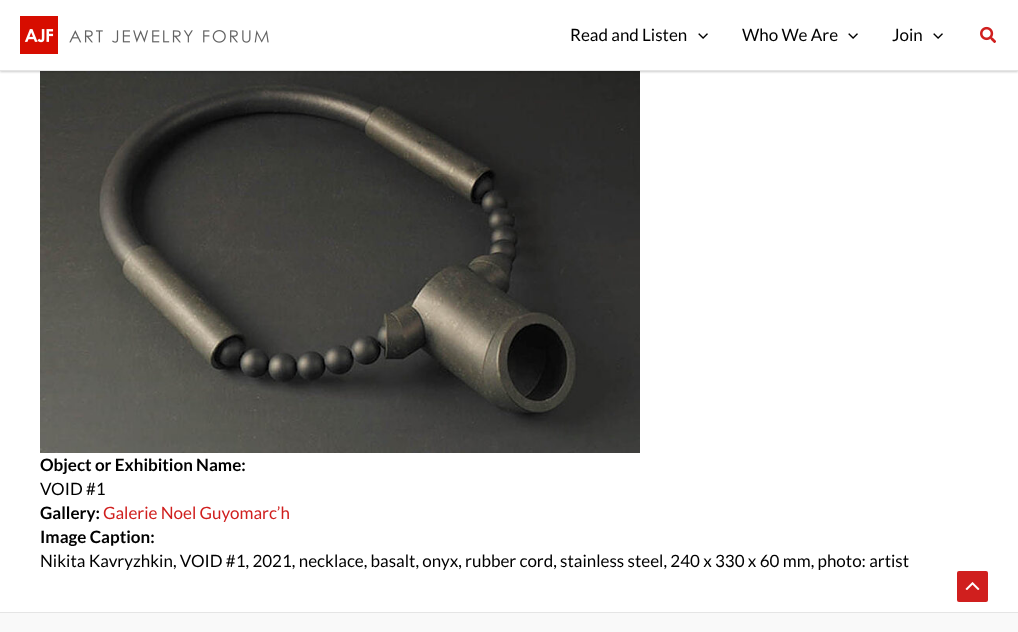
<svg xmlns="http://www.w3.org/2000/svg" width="1018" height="632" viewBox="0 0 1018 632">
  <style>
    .t1 { font: 17px Lato; fill: #000; }
    .t2 { font: bold 17px Lato; fill: #000; }
    .t3 { font: 17px Lato; fill: #d01f1e; }
  </style>
  <rect width="100%" height="100%" fill="#fff"/>
  <image x="40" y="71" width="600" height="382" href="images/4.png"/>
  <rect x="0" y="1" width="1018" height="71" fill="#00000033" filter="blur(1px)"/>
  <rect x="0" y="0" width="1018" height="70" fill="#fff"/>
  <rect x="0" y="70" width="1018" height="1" fill="#e5e5e5"/>
  <image x="20" y="16" width="249" height="38" href="images/1.png"/>
  <text x="570" y="41" class="t1">Read and Listen</text>
  <image x="698" y="33" width="10" height="6" href="images/2.png"/>
  <text x="742" y="41" class="t1">Who We Are</text>
  <image x="848" y="33" width="10" height="6" href="images/2.png"/>
  <text x="892" y="41" class="t1">Join</text>
  <image x="933" y="33" width="10" height="6" href="images/2.png"/>
  <image x="980" y="26" width="16" height="17" href="images/3.png"/>
  <text x="40" y="471" class="t2">Object or Exhibition Name:</text>
  <text x="40" y="495" class="t1">VOID #1</text>
  <text x="40" y="519" class="t2">Gallery:</text>
  <text x="103" y="519" class="t3">Galerie Noel Guyomarc’h</text>
  <text x="40" y="543" class="t2">Image Caption:</text>
  <text x="40" y="567" class="t1">Nikita Kavryzhkin, VOID #1, 2021, necklace, basalt, onyx, rubber cord, stainless steel, 240 x 330 x 60 mm, photo: artist</text>
  <rect x="0" y="613" width="1018" height="19" fill="#f9f9f9"/>
  <rect x="0" y="612" width="1018" height="1" fill="#e5e5e5"/>
  <rect x="957" y="571" width="31" height="31" rx="2" fill="#d01f1e"/>
  <image x="965" y="582" width="15" height="8" href="images/5.png"/>
</svg>
